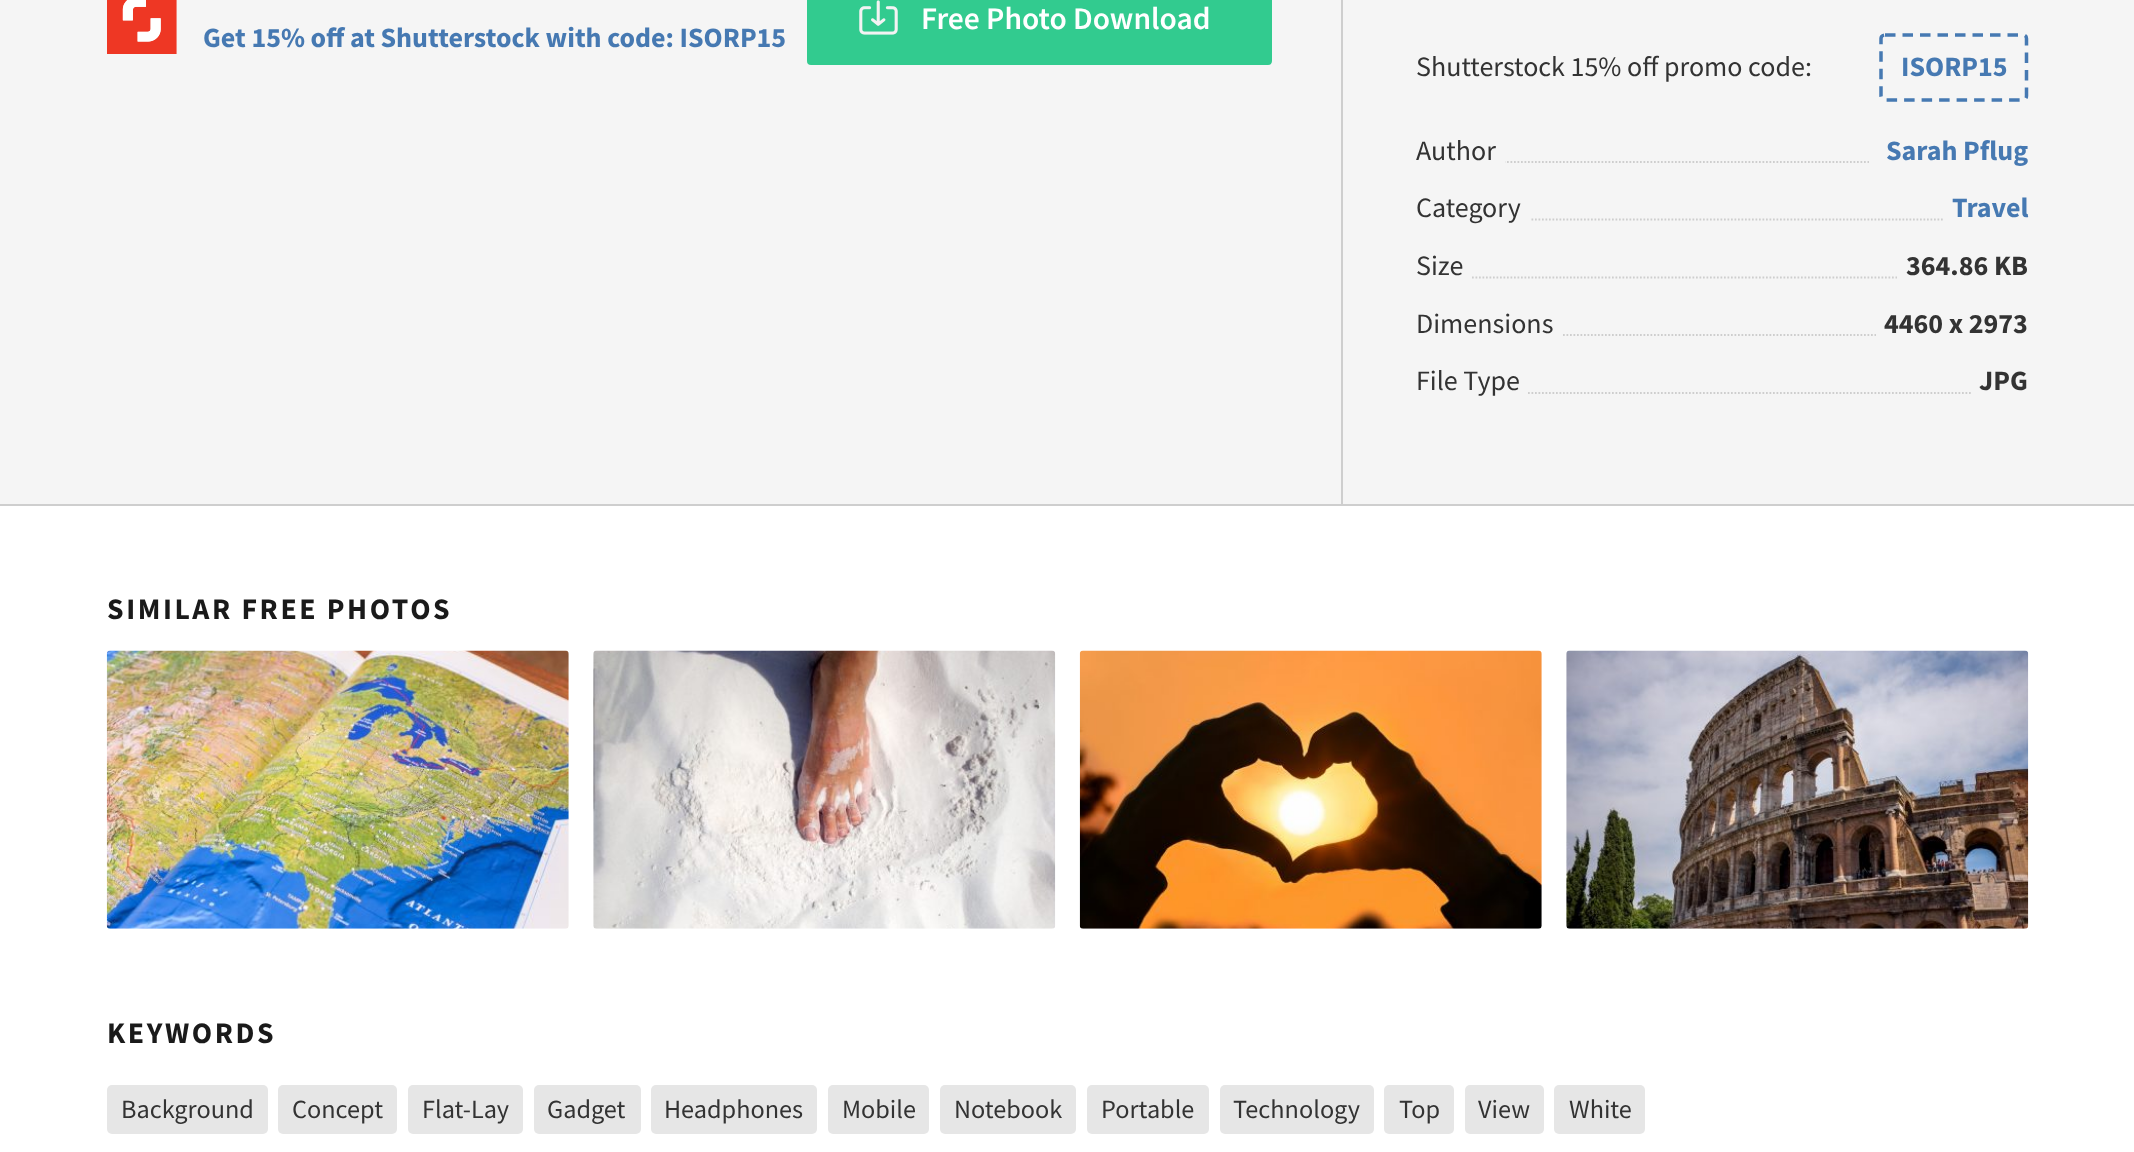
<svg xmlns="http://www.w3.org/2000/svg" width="2134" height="1152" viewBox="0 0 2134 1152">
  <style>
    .t1 { font: 600 31.5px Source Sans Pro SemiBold; fill: #fff; }
    .t2 { font: bold 28px Source Sans Pro; fill: #4679b2; }
    .t3 { font: 28px Source Sans Pro; fill: #333; }
    .t4 { font: bold 28px Source Sans Pro; fill: #333; }
    .t5 { font: bold 29.75px Source Sans Pro; letter-spacing: 2.6px; fill: #1a1a1a; }
    .t6 { font: 26.25px Source Sans Pro; fill: #333; }
  </style>
  <rect width="100%" height="100%" fill="#fff"/>
  <rect x="0" y="0" width="2134" height="504" fill="#f5f5f5"/>
  <rect x="0" y="504" width="2134" height="2" fill="#cecece"/>
  <rect x="1341" y="0" width="2" height="506" fill="#cecece"/>
  <rect x="807" y="-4" width="465" height="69" rx="4" fill="#32cb8f"/>
  <image x="859" y="0" width="39" height="35" href="images/1.png"/>
  <text x="921" y="29" class="t1">Free Photo Download</text>
  <image x="107" y="0" width="70" height="54" href="images/2.png"/>
  <text x="203" y="47" class="t2">Get 15% off at Shutterstock with code: ISORP15</text>
  <text x="1416" y="76" class="t3">Shutterstock 15% off promo code:</text>
  <path d="M1885 35H2023C2025 35 2026.5 36.5 2026.5 38.5V96C2026.5 98 2025 100 2023 100H1885C1883 100 1881 98 1881 96V38.5C1881 36.5 1883 35 1885 35Z" fill="none" stroke="#4679b2" stroke-width="3.5" stroke-dasharray="10.5 7"/>
  <text x="1901" y="76" class="t2">ISORP15</text>
  <path d="M1416 162H2028" fill="none" stroke="#cecece" stroke-width="1.8" stroke-dasharray="1.75 1.75"/>
  <rect x="1416" y="161" width="89" height="2" fill="#f5f5f5"/>
  <text x="1416" y="160" class="t3">Author</text>
  <rect x="1869" y="161" width="158" height="2" fill="#f5f5f5"/>
  <text x="1886" y="160" class="t2">Sarah Pflug</text>
  <path d="M1416 219.5H2028" fill="none" stroke="#cecece" stroke-width="1.8" stroke-dasharray="1.75 1.75"/>
  <rect x="1416" y="218" width="114" height="3" fill="#f5f5f5"/>
  <text x="1416" y="217" class="t3">Category</text>
  <rect x="1944" y="218" width="83" height="3" fill="#f5f5f5"/>
  <text x="1952" y="217" class="t2">Travel</text>
  <path d="M1416 277.5H2028" fill="none" stroke="#cecece" stroke-width="1.8" stroke-dasharray="1.75 1.75"/>
  <rect x="1416" y="276" width="55" height="3" fill="#f5f5f5"/>
  <text x="1416" y="275" class="t3">Size</text>
  <rect x="1897" y="276" width="130" height="3" fill="#f5f5f5"/>
  <text x="1906" y="275" class="t4">364.86 KB</text>
  <path d="M1416 335H2028" fill="none" stroke="#cecece" stroke-width="1.8" stroke-dasharray="1.75 1.75"/>
  <rect x="1416" y="334" width="146" height="2" fill="#f5f5f5"/>
  <text x="1416" y="333" class="t3">Dimensions</text>
  <rect x="1876" y="334" width="151" height="2" fill="#f5f5f5"/>
  <text x="1884" y="333" class="t4">4460 x 2973</text>
  <path d="M1416 393H2028" fill="none" stroke="#cecece" stroke-width="1.8" stroke-dasharray="1.75 1.75"/>
  <rect x="1416" y="392" width="111" height="2" fill="#f5f5f5"/>
  <text x="1416" y="390" class="t3">File Type</text>
  <rect x="1972" y="392" width="55" height="2" fill="#f5f5f5"/>
  <text x="1979" y="390" class="t4">JPG</text>
  <text x="107" y="619" class="t5">SIMILAR FREE PHOTOS</text>
  <image x="106" y="650" width="463" height="279" href="images/3.png"/>
  <image x="593" y="650" width="463" height="279" href="images/4.png"/>
  <image x="1079" y="650" width="463" height="279" href="images/5.png"/>
  <image x="1566" y="650" width="463" height="279" href="images/6.png"/>
  <text x="107" y="1043" class="t5">KEYWORDS</text>
  <rect x="107" y="1085" width="161" height="49" rx="5" fill="#e6e6e6"/>
  <text x="121" y="1118" class="t6">Background</text>
  <rect x="278" y="1085" width="119" height="49" rx="5" fill="#e6e6e6"/>
  <text x="292" y="1118" class="t6">Concept</text>
  <rect x="408" y="1085" width="115" height="49" rx="5" fill="#e6e6e6"/>
  <text x="422" y="1118" class="t6">Flat-Lay</text>
  <rect x="534" y="1085" width="107" height="49" rx="5" fill="#e6e6e6"/>
  <text x="547" y="1118" class="t6">Gadget</text>
  <rect x="651" y="1085" width="166" height="49" rx="5" fill="#e6e6e6"/>
  <text x="664" y="1118" class="t6">Headphones</text>
  <rect x="828" y="1085" width="101" height="49" rx="5" fill="#e6e6e6"/>
  <text x="842" y="1118" class="t6">Mobile</text>
  <rect x="940" y="1085" width="136" height="49" rx="5" fill="#e6e6e6"/>
  <text x="954" y="1118" class="t6">Notebook</text>
  <rect x="1087" y="1085" width="122" height="49" rx="5" fill="#e6e6e6"/>
  <text x="1101" y="1118" class="t6">Portable</text>
  <rect x="1220" y="1085" width="154" height="49" rx="5" fill="#e6e6e6"/>
  <text x="1233" y="1118" class="t6">Technology</text>
  <rect x="1384" y="1085" width="70" height="49" rx="5" fill="#e6e6e6"/>
  <text x="1399" y="1118" class="t6">Top</text>
  <rect x="1465" y="1085" width="79" height="49" rx="5" fill="#e6e6e6"/>
  <text x="1478" y="1118" class="t6">View</text>
  <rect x="1554" y="1085" width="91" height="49" rx="5" fill="#e6e6e6"/>
  <text x="1569" y="1118" class="t6">White</text>
</svg>
